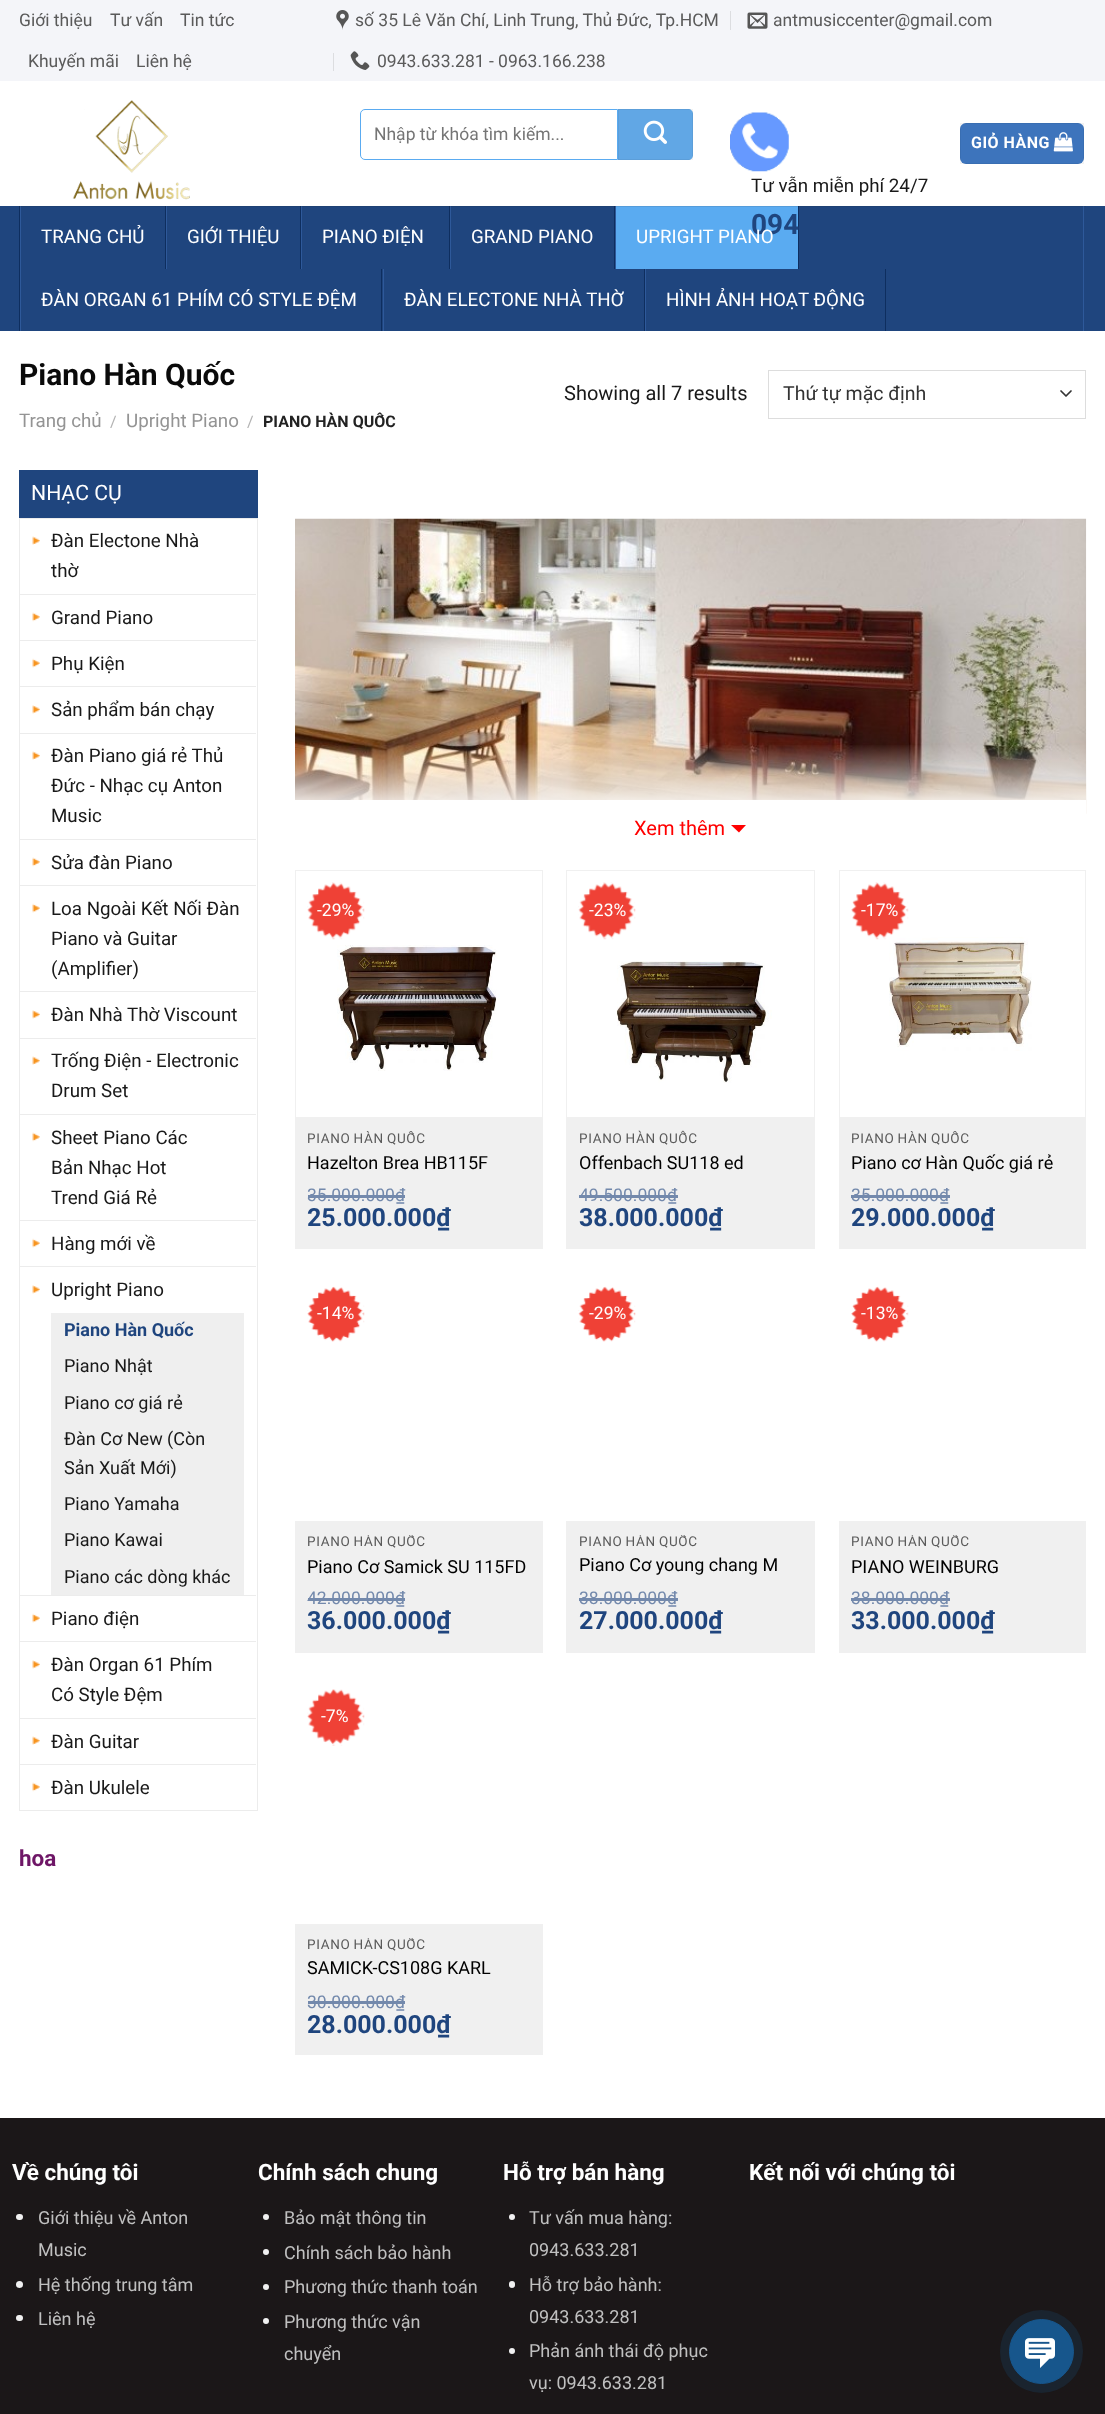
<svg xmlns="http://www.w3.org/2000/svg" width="1105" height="2414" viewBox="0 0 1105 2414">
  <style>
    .t1 { font: 17.5px Roboto; fill: #5a5a5a; }
    .t2 { font: 17.5px Roboto; fill: #757575; }
    .t3 { font: 18.75px Roboto; fill: #191919; }
    .t4 { font: bold 28px Roboto; fill: #1f457e; }
    .t5 { font: bold 16px Roboto; letter-spacing: 0.5px; fill: #fff; }
    .t6 { font: 18.75px Roboto; fill: #fff; }
    .t7 { font: bold 30px Roboto; fill: #0a0a0a; }
    .t8 { font: 18.75px Roboto; fill: #949494; }
    .t9 { font: 16px Roboto; fill: #b2b2b2; }
    .t10 { font: bold 16px Roboto; fill: #222; }
    .t11 { font: 20px Roboto; fill: #191919; }
    .t12 { font: 19.5px Roboto; fill: #333; }
    .t13 { font: 21.25px Roboto; fill: #fff; }
    .t14 { font: bold 18px Roboto; fill: #1f457e; }
    .t15 { font: 18px Roboto; fill: #191919; }
    .t16 { font: bold 22.5px Roboto; fill: #6e1666; }
    .t17 { font: 20px Roboto; fill: #f00; }
    .t18 { font: 17.5px Roboto; fill: #fff; }
    .t19 { font: 13.5px Roboto; letter-spacing: 0.7px; fill: #5a5a5a; }
    .t20 { font: 18px Roboto; fill: #000; }
    .t21 { font: 17.5px Roboto; fill: #7389ac; }
    .t22 { font: bold 25px Roboto; fill: #1f457e; }
    .t23 { font: bold 22.5px Roboto; fill: #fff; }
    .t24 { font: 18px Roboto; fill: #c0c0c0; }
  </style>
  <defs>
    <linearGradient id="g1" gradientUnits="userSpaceOnUse" x1="691" y1="744" x2="691" y2="813"><stop offset="0" stop-color="#fff" stop-opacity="0"/><stop offset="1" stop-color="#fff"/></linearGradient>
    <clipPath id="clip1"><rect x="308" y="1131" width="222" height="17"/></clipPath>
    <clipPath id="clip2"><rect x="851" y="1131" width="223" height="17"/></clipPath>
    <clipPath id="clip3"><rect x="308" y="1535" width="222" height="16"/></clipPath>
    <clipPath id="clip4"><rect x="579" y="1535" width="224" height="16"/></clipPath>
    <clipPath id="clip5"><rect x="851" y="1535" width="223" height="16"/></clipPath>
    <clipPath id="clip6"><rect x="308" y="1938" width="222" height="16"/></clipPath>
  </defs>
  <rect width="100%" height="100%" fill="#fff"/>
  <rect x="0" y="0" width="1105" height="81" fill="#f4f5f9"/>
  <text x="19" y="26" class="t1">Giới thiệu</text>
  <text x="110" y="26" class="t1">Tư vấn</text>
  <text x="180" y="26" class="t1">Tin tức</text>
  <text x="28" y="67" class="t1">Khuyến mãi</text>
  <text x="136" y="67" class="t1">Liên hệ</text>
  <image x="336" y="10" width="13" height="20" href="images/1.png"/>
  <text x="355" y="26" class="t1">số 35 Lê Văn Chí, Linh Trung, Thủ Đức, Tp.HCM</text>
  <rect x="730" y="11" width="1" height="19" fill="#dcdde0"/>
  <image x="747" y="12" width="21" height="17" href="images/2.png"/>
  <text x="773" y="26" class="t1">antmusiccenter@gmail.com</text>
  <rect x="333" y="53" width="1" height="18" fill="#dcdde0"/>
  <image x="350" y="51" width="20" height="19" href="images/3.png"/>
  <text x="377" y="67" class="t1">0943.633.281 - 0963.166.238</text>
  <image x="72" y="100" width="118" height="100" href="images/4.png"/>
  <path d="M365 109.5H617.5V159.5H365C362.5 159.5 360.5 157.5 360.5 155V114C360.5 111.5 362.5 109.5 365 109.5Z" fill="none" stroke="#5aabf1"/>
  <text x="374" y="140" class="t2">Nhập từ khóa tìm kiếm...</text>
  <path d="M618 109H688C691 109 693 111 693 114V155C693 158 691 160 688 160H618Z" fill="#61a7e5"/>
  <rect x="618.5" y="109.5" width="74" height="50" fill="none" stroke="#0000000d"/>
  <image x="643" y="120" width="24" height="24" href="images/5.png"/>
  <image x="730" y="112" width="59" height="60" href="images/6.png"/>
  <text x="751" y="192" class="t3">Tư vẫn miễn phí 24/7</text>
  <rect x="0" y="206" width="1105" height="125" fill="#1f457e"/>
  <rect x="616" y="207" width="182" height="62" fill="#5aabf1"/>
  <rect x="19" y="206" width="1067" height="1" fill="#1e4174"/>
  <rect x="615" y="206" width="184" height="1" fill="#549cdb"/>
  <rect x="798" y="206" width="1" height="63" fill="#0e2e5f"/>
  <text x="751" y="234" class="t4">094</text>
  <rect x="960" y="123" width="124" height="41" rx="6" fill="#3d74bc"/>
  <rect x="960.5" y="123.5" width="123" height="40" fill="none" stroke="#0000000d"/>
  <text x="971" y="148" class="t5">GIỎ HÀNG</text>
  <image x="1053" y="132" width="20" height="20" href="images/7.png"/>
  <rect x="1083" y="206" width="1" height="125" fill="#2e599a"/>
  <rect x="1083" y="206" width="1" height="1" fill="#2c538d"/>
  <rect x="19" y="206" width="1" height="125" fill="#0e2e5f"/>
  <rect x="19" y="206" width="1" height="1" fill="#0f2c58"/>
  <rect x="165" y="206" width="1" height="63" fill="#0e2e5f"/>
  <rect x="165" y="206" width="1" height="1" fill="#0f2c58"/>
  <rect x="20" y="206" width="1" height="125" fill="#2e599a"/>
  <rect x="20" y="206" width="1" height="1" fill="#2c538d"/>
  <text x="41" y="243" class="t6">TRANG CHỦ</text>
  <rect x="300" y="206" width="1" height="63" fill="#0e2e5f"/>
  <rect x="300" y="206" width="1" height="1" fill="#0f2c58"/>
  <rect x="166" y="206" width="1" height="63" fill="#2e599a"/>
  <rect x="166" y="206" width="1" height="1" fill="#2c538d"/>
  <text x="187" y="243" class="t6">GIỚI</text>
  <text x="227" y="243" class="t6">THIỆU</text>
  <rect x="449" y="206" width="1" height="63" fill="#0e2e5f"/>
  <rect x="449" y="206" width="1" height="1" fill="#0f2c58"/>
  <rect x="301" y="206" width="1" height="63" fill="#2e599a"/>
  <rect x="301" y="206" width="1" height="1" fill="#2c538d"/>
  <text x="322" y="243" class="t6">PIANO ĐIỆN</text>
  <rect x="614" y="206" width="1" height="63" fill="#0e2e5f"/>
  <rect x="614" y="206" width="1" height="1" fill="#0f2c58"/>
  <rect x="450" y="206" width="1" height="63" fill="#2e599a"/>
  <rect x="450" y="206" width="1" height="1" fill="#2c538d"/>
  <text x="471" y="243" class="t6">GRAND PIANO</text>
  <rect x="798" y="206" width="1" height="1" fill="#0f2c58"/>
  <rect x="615" y="206" width="1" height="63" fill="#2e599a"/>
  <rect x="615" y="206" width="1" height="1" fill="#2c538d"/>
  <text x="636" y="243" class="t6">UPRIGHT PIANO</text>
  <rect x="381" y="269" width="1" height="62" fill="#0e2e5f"/>
  <text x="41" y="306" class="t6">ĐÀN ORGAN 61 PHÍM CÓ STYLE ĐỆM</text>
  <rect x="644" y="269" width="1" height="62" fill="#0e2e5f"/>
  <rect x="383" y="269" width="1" height="62" fill="#2e599a"/>
  <text x="404" y="306" class="t6">ĐÀN ELECTONE NHÀ THỜ</text>
  <rect x="885" y="269" width="1" height="62" fill="#0e2e5f"/>
  <rect x="645" y="269" width="1" height="62" fill="#2e599a"/>
  <text x="666" y="306" class="t6">HÌNH ẢNH HOẠT ĐỘNG</text>
  <text x="19" y="385" class="t7">Piano Hàn Quốc</text>
  <text x="19" y="427" class="t8">Trang chủ</text>
  <text x="110" y="427" class="t9">/</text>
  <text x="126" y="427" class="t8">Upright Piano</text>
  <text x="247" y="427" class="t9">/</text>
  <text x="263" y="427" class="t10">PIANO HÀN QUỐC</text>
  <text x="564" y="400" class="t11">Showing all 7 results</text>
  <path d="M1061 391L1066 396L1071 391" fill="none" stroke="#333" stroke-width="1.7" stroke-linecap="round" stroke-linejoin="round"/>
  <rect x="768.5" y="370.5" width="317" height="48" fill="none" stroke="#ddd"/>
  <text x="783" y="400" class="t12">Thứ tự mặc định</text>
  <rect x="19" y="470" width="239" height="48" fill="#1f457e"/>
  <text x="31" y="500" class="t13">NHẠC CỤ</text>
  <rect x="19.5" y="518.5" width="238" height="1292" fill="none" stroke="#ececec"/>
  <image x="32" y="536" width="8" height="9" href="images/8.png"/>
  <text x="51" y="547" class="t3">Đàn Electone Nhà</text>
  <text x="51" y="577" class="t3">thờ</text>
  <image x="32" y="612" width="8" height="10" href="images/9.png"/>
  <rect x="20" y="594" width="236" height="1" fill="#ececec"/>
  <text x="51" y="624" class="t3">Grand Piano</text>
  <image x="32" y="658" width="8" height="10" href="images/10.png"/>
  <rect x="20" y="640" width="236" height="1" fill="#ececec"/>
  <text x="51" y="670" class="t3">Phụ Kiện</text>
  <image x="32" y="705" width="8" height="9" href="images/11.png"/>
  <rect x="20" y="686" width="236" height="1" fill="#ececec"/>
  <text x="51" y="716" class="t3">Sản phẩm bán chạy</text>
  <image x="32" y="751" width="8" height="9" href="images/8.png"/>
  <rect x="20" y="733" width="236" height="1" fill="#ececec"/>
  <text x="51" y="762" class="t3">Đàn Piano giá rẻ Thủ</text>
  <text x="51" y="792" class="t3">Đức - Nhạc cụ Anton</text>
  <text x="51" y="822" class="t3">Music</text>
  <image x="32" y="857" width="8" height="10" href="images/9.png"/>
  <rect x="20" y="839" width="236" height="1" fill="#ececec"/>
  <text x="51" y="869" class="t3">Sửa đàn Piano</text>
  <image x="32" y="903" width="8" height="10" href="images/10.png"/>
  <rect x="20" y="885" width="236" height="1" fill="#ececec"/>
  <text x="51" y="915" class="t3">Loa Ngoài Kết Nối Đàn</text>
  <text x="51" y="945" class="t3">Piano và Guitar</text>
  <text x="51" y="975" class="t3">(Amplifier)</text>
  <image x="32" y="1010" width="8" height="9" href="images/11.png"/>
  <rect x="20" y="991" width="236" height="1" fill="#ececec"/>
  <text x="51" y="1021" class="t3">Đàn Nhà Thờ Viscount</text>
  <image x="32" y="1056" width="8" height="9" href="images/8.png"/>
  <rect x="20" y="1038" width="236" height="1" fill="#ececec"/>
  <text x="51" y="1067" class="t3">Trống Điện - Electronic</text>
  <text x="51" y="1097" class="t3">Drum Set</text>
  <image x="32" y="1132" width="8" height="10" href="images/9.png"/>
  <rect x="20" y="1114" width="236" height="1" fill="#ececec"/>
  <text x="51" y="1144" class="t3">Sheet Piano Các</text>
  <text x="51" y="1174" class="t3">Bản Nhạc Hot</text>
  <text x="51" y="1204" class="t3">Trend Giá Rẻ</text>
  <image x="32" y="1238" width="8" height="10" href="images/10.png"/>
  <rect x="20" y="1220" width="236" height="1" fill="#ececec"/>
  <text x="51" y="1250" class="t3">Hàng mới về</text>
  <image x="32" y="1285" width="8" height="9" href="images/11.png"/>
  <rect x="20" y="1266" width="236" height="1" fill="#ececec"/>
  <text x="51" y="1296" class="t3">Upright Piano</text>
  <rect x="51" y="1313" width="193" height="282" fill="#efefef"/>
  <text x="64" y="1336" class="t14">Piano Hàn Quốc</text>
  <text x="64" y="1372" class="t15">Piano Nhật</text>
  <text x="64" y="1409" class="t15">Piano cơ giá rẻ</text>
  <text x="64" y="1445" class="t15">Đàn Cơ New (Còn</text>
  <text x="64" y="1474" class="t15">Sản Xuất Mới)</text>
  <text x="64" y="1510" class="t15">Piano Yamaha</text>
  <text x="64" y="1546" class="t15">Piano Kawai</text>
  <text x="64" y="1583" class="t15">Piano các dòng khác</text>
  <image x="32" y="1613" width="8" height="10" href="images/10.png"/>
  <rect x="20" y="1595" width="236" height="1" fill="#ececec"/>
  <text x="51" y="1625" class="t3">Piano điện</text>
  <image x="32" y="1660" width="8" height="9" href="images/11.png"/>
  <rect x="20" y="1641" width="236" height="1" fill="#ececec"/>
  <text x="51" y="1671" class="t3">Đàn Organ 61 Phím</text>
  <text x="51" y="1701" class="t3">Có Style Đệm</text>
  <image x="32" y="1736" width="8" height="9" href="images/8.png"/>
  <rect x="20" y="1718" width="236" height="1" fill="#ececec"/>
  <text x="51" y="1748" class="t3">Đàn Guitar</text>
  <image x="32" y="1782" width="8" height="10" href="images/12.png"/>
  <rect x="20" y="1764" width="236" height="1" fill="#ececec"/>
  <text x="51" y="1794" class="t3">Đàn Ukulele</text>
  <text x="19" y="1866" class="t16">hoa</text>
  <image x="295" y="518" width="792" height="296" href="images/13.png"/>
  <rect x="295" y="800" width="791" height="14" fill="#fff"/>
  <rect x="295" y="745" width="791" height="55" fill="url(#g1)"/>
  <text x="634" y="835" class="t17">Xem thêm</text>
  <path d="M731 825H746L739 832.5Z" fill="#f00"/>
  <rect x="295.5" y="870.5" width="247" height="247" fill="none" stroke="#f0f0f0"/>
  <image x="307" y="882" width="58" height="58" href="images/14.png"/>
  <text x="317" y="916" class="t18">-29%</text>
  <image x="337" y="945" width="163" height="126" href="images/15.png"/>
  <rect x="295" y="1118" width="248" height="131" fill="#f0f0f0"/>
  <g clip-path="url(#clip1)">
    <text x="307" y="1143" word-spacing="-1" class="t19">PIANO HÀN QUỐC</text>
  </g>
  <text x="307" y="1169" class="t20">Hazelton Brea HB115F</text>
  <text x="307" y="1201" class="t21">35.000.000₫</text>
  <rect x="308" y="1195" width="97" height="3" fill="#7389ac"/>
  <text x="307" y="1226" class="t22">25.000.000₫</text>
  <rect x="566.5" y="870.5" width="248" height="247" fill="none" stroke="#f0f0f0"/>
  <image x="578" y="882" width="58" height="58" href="images/16.png"/>
  <text x="589" y="916" class="t18">-23%</text>
  <image x="616" y="961" width="156" height="122" href="images/17.png"/>
  <rect x="566" y="1118" width="249" height="131" fill="#f0f0f0"/>
  <text x="579" y="1143" word-spacing="-1" class="t19">PIANO HÀN QUỐC</text>
  <text x="579" y="1169" class="t20">Offenbach SU118 ed</text>
  <text x="579" y="1201" class="t21">49.500.000₫</text>
  <rect x="579" y="1195" width="99" height="3" fill="#7389ac"/>
  <text x="579" y="1226" class="t22">38.000.000₫</text>
  <rect x="839.5" y="870.5" width="246" height="247" fill="none" stroke="#f0f0f0"/>
  <image x="889" y="937" width="143" height="114" href="images/19.png"/>
  <image x="851" y="882" width="58" height="58" href="images/18.png"/>
  <text x="861" y="916" class="t18">-17%</text>
  <rect x="839" y="1118" width="247" height="131" fill="#f0f0f0"/>
  <g clip-path="url(#clip2)">
    <text x="851" y="1143" word-spacing="-1" class="t19">PIANO HÀN QUỐC</text>
  </g>
  <text x="851" y="1169" class="t20">Piano cơ Hàn Quốc giá rẻ</text>
  <text x="851" y="1201" class="t21">35.000.000₫</text>
  <rect x="851" y="1195" width="99" height="3" fill="#7389ac"/>
  <text x="851" y="1226" class="t22">29.000.000₫</text>
  <image x="307" y="1286" width="58" height="56" href="images/20.png"/>
  <text x="317" y="1319" class="t18">-14%</text>
  <rect x="295" y="1521" width="248" height="132" fill="#f0f0f0"/>
  <g clip-path="url(#clip3)">
    <text x="307" y="1546" word-spacing="-1" class="t19">PIANO HÀN QUỐC</text>
  </g>
  <text x="307" y="1573" class="t20">Piano Cơ Samick SU 115FD</text>
  <text x="307" y="1604" class="t21">42.000.000₫</text>
  <rect x="308" y="1598" width="97" height="3" fill="#7389ac"/>
  <text x="307" y="1629" class="t22">36.000.000₫</text>
  <image x="578" y="1286" width="58" height="56" href="images/21.png"/>
  <text x="589" y="1319" class="t18">-29%</text>
  <rect x="566" y="1521" width="249" height="132" fill="#f0f0f0"/>
  <g clip-path="url(#clip4)">
    <text x="579" y="1546" word-spacing="-1" class="t19">PIANO HÀN QUỐC</text>
  </g>
  <text x="579" y="1571" class="t20">Piano Cơ young chang M</text>
  <text x="579" y="1604" class="t21">38.000.000₫</text>
  <rect x="579" y="1598" width="99" height="3" fill="#7389ac"/>
  <text x="579" y="1629" class="t22">27.000.000₫</text>
  <image x="851" y="1286" width="58" height="56" href="images/22.png"/>
  <text x="861" y="1319" class="t18">-13%</text>
  <rect x="839" y="1521" width="247" height="132" fill="#f0f0f0"/>
  <g clip-path="url(#clip5)">
    <text x="851" y="1546" word-spacing="-1" class="t19">PIANO HÀN QUỐC</text>
  </g>
  <text x="851" y="1573" class="t20">PIANO WEINBURG</text>
  <text x="851" y="1604" class="t21">38.000.000₫</text>
  <rect x="851" y="1598" width="99" height="3" fill="#7389ac"/>
  <text x="851" y="1629" class="t22">33.000.000₫</text>
  <image x="307" y="1689" width="58" height="57" href="images/23.png"/>
  <text x="321" y="1722" class="t18">-7%</text>
  <rect x="295" y="1924" width="248" height="131" fill="#f0f0f0"/>
  <g clip-path="url(#clip6)">
    <text x="307" y="1949" word-spacing="-1" class="t19">PIANO HÀN QUỐC</text>
  </g>
  <text x="307" y="1974" class="t20">SAMICK-CS108G KARL</text>
  <text x="307" y="2008" class="t21">30.000.000₫</text>
  <rect x="308" y="2001" width="97" height="3" fill="#7389ac"/>
  <text x="307" y="2033" class="t22">28.000.000₫</text>
  <rect x="0" y="2118" width="1105" height="296" fill="#1b1718"/>
  <text x="12" y="2180" class="t23">Về chúng tôi</text>
  <rect x="16" y="2214" width="7" height="6" rx="3" fill="#f1f1f1"/>
  <text x="38" y="2224" class="t24">Giới thiệu về Anton</text>
  <text x="38" y="2256" class="t24">Music</text>
  <circle cx="19.5" cy="2284.5" r="3.5" fill="#f1f1f1"/>
  <text x="38" y="2291" class="t24">Hệ thống trung tâm</text>
  <rect x="16" y="2315" width="7" height="6" rx="3" fill="#f1f1f1"/>
  <text x="38" y="2325" class="t24">Liên hệ</text>
  <text x="258" y="2180" class="t23">Chính sách chung</text>
  <circle cx="266" cy="2217" r="3" fill="#f1f1f1"/>
  <text x="284" y="2224" class="t24">Bảo mật thông tin</text>
  <circle cx="266" cy="2252" r="3" fill="#f1f1f1"/>
  <text x="284" y="2259" class="t24">Chính sách bảo hành</text>
  <circle cx="266" cy="2287" r="3" fill="#f1f1f1"/>
  <text x="284" y="2293" class="t24">Phương thức thanh toán</text>
  <circle cx="266" cy="2321" r="3" fill="#f1f1f1"/>
  <text x="284" y="2328" class="t24">Phương thức vận</text>
  <text x="284" y="2360" class="t24">chuyển</text>
  <text x="503" y="2180" class="t23">Hỗ trợ bán hàng</text>
  <circle cx="512" cy="2217" r="3" fill="#f1f1f1"/>
  <text x="529" y="2224" class="t24">Tư vấn mua hàng:</text>
  <text x="529" y="2256" class="t24">0943.633.281</text>
  <rect x="509" y="2281" width="6" height="7" rx="3" fill="#f1f1f1"/>
  <text x="529" y="2291" class="t24">Hỗ trợ bảo hành:</text>
  <text x="529" y="2323" class="t24">0943.633.281</text>
  <circle cx="512" cy="2351" r="3" fill="#f1f1f1"/>
  <text x="529" y="2357" class="t24">Phản ánh thái độ phục</text>
  <text x="529" y="2389" class="t24">vụ: 0943.633.281</text>
  <text x="749" y="2180" class="t23">Kết nối với chúng tôi</text>
  <circle cx="1041.5" cy="2351.5" r="41.5" fill="#1a242f"/>
  <circle cx="1041.5" cy="2351.5" r="32" fill="#17568c" stroke="#17568c"/>
  <image x="1025" y="2338" width="30" height="30" href="images/24.png"/>
</svg>
